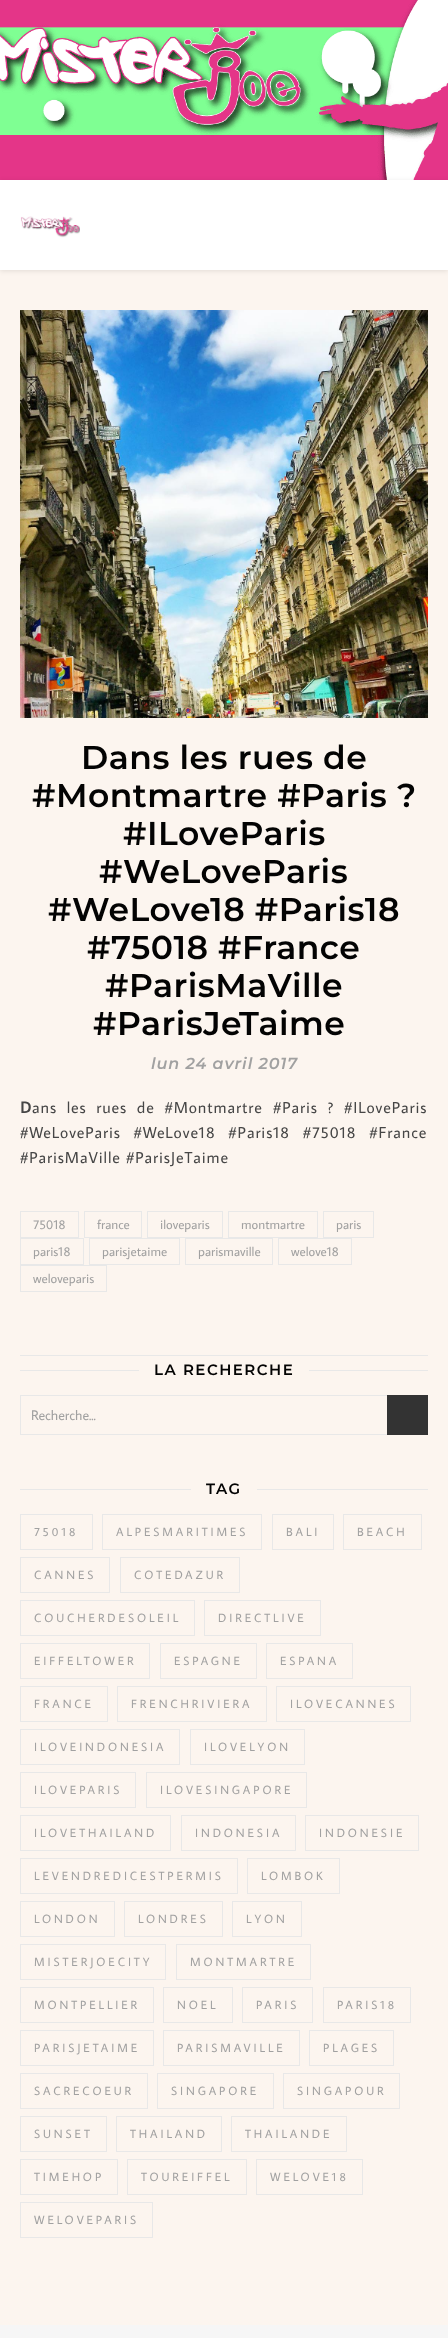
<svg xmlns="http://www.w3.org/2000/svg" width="448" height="2338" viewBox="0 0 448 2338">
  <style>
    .t1 { font: 600 33px Montserrat; letter-spacing: 0.5px; fill: #030303; }
    .t2 { font: italic 600 16px Montserrat; letter-spacing: 0.9px; fill: #a1a1a1; }
    .t3 { font: 600 16px Noto Sans; letter-spacing: 0.9px; fill: #464646; }
    .t4 { font: 16px Average Sans; letter-spacing: 0.9px; fill: #464646; }
    .t5 { font: 13px Average Sans; fill: #a1a1a1; }
    .t6 { font: 600 15px Montserrat; letter-spacing: 1.5px; fill: #030303; }
    .t7 { font: 14px Average Sans; fill: #a1a1a1; }
    .t8 { font: 12px Average Sans; letter-spacing: 2.9px; fill: #a1a1a1; }
  </style>
  <rect width="100%" height="100%" fill="#fcf5ef"/>
  <image x="0" y="0" width="448" height="180" href="images/1.png"/>
  <rect x="0" y="181" width="448" height="90" fill="#0000001a" filter="blur(2.5px)"/>
  <rect x="0" y="180" width="448" height="90" fill="#fff"/>
  <image x="20" y="216" width="60" height="22" href="images/2.png"/>
  <image x="20" y="310" width="408" height="408" href="images/3.png"/>
  <text x="81" y="769" class="t1">Dans les rues de</text>
  <text x="32" y="807" class="t1">#Montmartre #Paris ?</text>
  <text x="123" y="845" class="t1">#ILoveParis</text>
  <text x="99" y="883" class="t1">#WeLoveParis</text>
  <text x="48" y="921" class="t1">#WeLove18 #Paris18</text>
  <text x="87" y="959" class="t1">#75018 #France</text>
  <text x="105" y="997" class="t1">#ParisMaVille</text>
  <text x="93" y="1035" class="t1">#ParisJeTaime ️</text>
  <text x="151" y="1069" class="t2">lun 24 avril 2017</text>
  <text x="20" y="1113" class="t3">D</text>
  <text x="32" y="1113" word-spacing="4.5" class="t4">ans les rues de #Montmartre</text>
  <text x="273" y="1113" word-spacing="4.5" class="t4">#Paris ? #ILoveParis</text>
  <text x="20" y="1138" word-spacing="7.5" class="t4">#WeLoveParis #WeLove18 #Paris18 #75018 #France</text>
  <text x="20" y="1163" class="t4">#ParisMaVille #ParisJeTaime ️</text>
  <rect x="20" y="1355" width="408" height="1" fill="#e8e8e8"/>
  <rect x="20.5" y="1211.5" width="58" height="26" fill="none" stroke="#e8e8e8"/>
  <text x="33" y="1229" class="t5">75018</text>
  <rect x="84.5" y="1211.5" width="57" height="26" fill="none" stroke="#e8e8e8"/>
  <text x="97" y="1229" class="t5">france</text>
  <rect x="147.5" y="1211.5" width="75" height="26" fill="none" stroke="#e8e8e8"/>
  <text x="160" y="1229" class="t5">iloveparis</text>
  <rect x="228.5" y="1211.5" width="89" height="26" fill="none" stroke="#e8e8e8"/>
  <text x="241" y="1229" class="t5">montmartre</text>
  <rect x="323.5" y="1211.5" width="50" height="26" fill="none" stroke="#e8e8e8"/>
  <text x="336" y="1229" class="t5">paris</text>
  <rect x="20.5" y="1238.5" width="63" height="26" fill="none" stroke="#e8e8e8"/>
  <text x="33" y="1256" class="t5">paris18</text>
  <rect x="89.5" y="1238.5" width="90" height="26" fill="none" stroke="#e8e8e8"/>
  <text x="102" y="1256" class="t5">parisjetaime</text>
  <rect x="185.5" y="1238.5" width="87" height="26" fill="none" stroke="#e8e8e8"/>
  <text x="198" y="1256" class="t5">parismaville</text>
  <rect x="278.5" y="1238.5" width="73" height="26" fill="none" stroke="#e8e8e8"/>
  <text x="291" y="1256" class="t5">welove18</text>
  <rect x="20.5" y="1265.5" width="86" height="26" fill="none" stroke="#e8e8e8"/>
  <text x="33" y="1283" class="t5">weloveparis</text>
  <rect x="20" y="1370" width="119" height="1" fill="#e8e8e8"/>
  <text x="154" y="1375" class="t6">LA RECHERCHE</text>
  <rect x="309" y="1370" width="119" height="1" fill="#e8e8e8"/>
  <rect x="20.5" y="1395.5" width="407" height="39" fill="none" stroke="#e8e8e8"/>
  <text x="31" y="1420" class="t7">Recherche...</text>
  <rect x="387" y="1395" width="41" height="40" fill="#333"/>
  <rect x="20" y="1489" width="171" height="1" fill="#e8e8e8"/>
  <text x="206" y="1494" class="t6">TAG</text>
  <rect x="257" y="1489" width="171" height="1" fill="#e8e8e8"/>
  <rect x="20.5" y="1514.5" width="72" height="35" fill="none" stroke="#e8e8e8"/>
  <text x="34" y="1536" class="t8">75018</text>
  <rect x="102.5" y="1514.5" width="159" height="35" fill="none" stroke="#e8e8e8"/>
  <text x="116" y="1536" class="t8">ALPESMARITIMES</text>
  <rect x="272.5" y="1514.5" width="61" height="35" fill="none" stroke="#e8e8e8"/>
  <text x="286" y="1536" class="t8">BALI</text>
  <rect x="343.5" y="1514.5" width="78" height="35" fill="none" stroke="#e8e8e8"/>
  <text x="357" y="1536" class="t8">BEACH</text>
  <rect x="20.5" y="1557.5" width="89" height="35" fill="none" stroke="#e8e8e8"/>
  <text x="34" y="1579" class="t8">CANNES</text>
  <rect x="120.5" y="1557.5" width="119" height="35" fill="none" stroke="#e8e8e8"/>
  <text x="134" y="1579" class="t8">COTEDAZUR</text>
  <rect x="20.5" y="1600.5" width="174" height="35" fill="none" stroke="#e8e8e8"/>
  <text x="34" y="1622" class="t8">COUCHERDESOLEIL</text>
  <rect x="204.5" y="1600.5" width="116" height="35" fill="none" stroke="#e8e8e8"/>
  <text x="218" y="1622" class="t8">DIRECTLIVE</text>
  <rect x="20.5" y="1643.5" width="129" height="35" fill="none" stroke="#e8e8e8"/>
  <text x="34" y="1665" class="t8">EIFFELTOWER</text>
  <rect x="160.5" y="1643.5" width="96" height="35" fill="none" stroke="#e8e8e8"/>
  <text x="174" y="1665" class="t8">ESPAGNE</text>
  <rect x="266.5" y="1643.5" width="86" height="35" fill="none" stroke="#e8e8e8"/>
  <text x="280" y="1665" class="t8">ESPANA</text>
  <rect x="20.5" y="1686.5" width="87" height="35" fill="none" stroke="#e8e8e8"/>
  <text x="34" y="1708" class="t8">FRANCE</text>
  <rect x="117.5" y="1686.5" width="149" height="35" fill="none" stroke="#e8e8e8"/>
  <text x="131" y="1708" class="t8">FRENCHRIVIERA</text>
  <rect x="276.5" y="1686.5" width="134" height="35" fill="none" stroke="#e8e8e8"/>
  <text x="290" y="1708" class="t8">ILOVECANNES</text>
  <rect x="20.5" y="1729.5" width="159" height="35" fill="none" stroke="#e8e8e8"/>
  <text x="34" y="1751" class="t8">ILOVEINDONESIA</text>
  <rect x="190.5" y="1729.5" width="114" height="35" fill="none" stroke="#e8e8e8"/>
  <text x="204" y="1751" class="t8">ILOVELYON</text>
  <rect x="20.5" y="1772.5" width="115" height="35" fill="none" stroke="#e8e8e8"/>
  <text x="34" y="1794" class="t8">ILOVEPARIS</text>
  <rect x="146.5" y="1772.5" width="160" height="35" fill="none" stroke="#e8e8e8"/>
  <text x="160" y="1794" class="t8">ILOVESINGAPORE</text>
  <rect x="20.5" y="1815.5" width="150" height="35" fill="none" stroke="#e8e8e8"/>
  <text x="34" y="1837" class="t8">ILOVETHAILAND</text>
  <rect x="181.5" y="1815.5" width="114" height="35" fill="none" stroke="#e8e8e8"/>
  <text x="195" y="1837" class="t8">INDONESIA</text>
  <rect x="305.5" y="1815.5" width="113" height="35" fill="none" stroke="#e8e8e8"/>
  <text x="319" y="1837" class="t8">INDONESIE</text>
  <rect x="20.5" y="1858.5" width="217" height="35" fill="none" stroke="#e8e8e8"/>
  <text x="34" y="1880" class="t8">LEVENDREDICESTPERMIS</text>
  <rect x="247.5" y="1858.5" width="92" height="35" fill="none" stroke="#e8e8e8"/>
  <text x="261" y="1880" class="t8">LOMBOK</text>
  <rect x="20.5" y="1901.5" width="94" height="35" fill="none" stroke="#e8e8e8"/>
  <text x="34" y="1923" class="t8">LONDON</text>
  <rect x="124.5" y="1901.5" width="98" height="35" fill="none" stroke="#e8e8e8"/>
  <text x="138" y="1923" class="t8">LONDRES</text>
  <rect x="232.5" y="1901.5" width="69" height="35" fill="none" stroke="#e8e8e8"/>
  <text x="246" y="1923" class="t8">LYON</text>
  <rect x="20.5" y="1944.5" width="145" height="35" fill="none" stroke="#e8e8e8"/>
  <text x="34" y="1966" class="t8">MISTERJOECITY</text>
  <rect x="176.5" y="1944.5" width="134" height="35" fill="none" stroke="#e8e8e8"/>
  <text x="190" y="1966" class="t8">MONTMARTRE</text>
  <rect x="20.5" y="1987.5" width="133" height="35" fill="none" stroke="#e8e8e8"/>
  <text x="34" y="2009" class="t8">MONTPELLIER</text>
  <rect x="163.5" y="1987.5" width="69" height="35" fill="none" stroke="#e8e8e8"/>
  <text x="177" y="2009" class="t8">NOEL</text>
  <rect x="242.5" y="1987.5" width="70" height="35" fill="none" stroke="#e8e8e8"/>
  <text x="256" y="2009" class="t8">PARIS</text>
  <rect x="323.5" y="1987.5" width="87" height="35" fill="none" stroke="#e8e8e8"/>
  <text x="337" y="2009" class="t8">PARIS18</text>
  <rect x="20.5" y="2030.5" width="133" height="35" fill="none" stroke="#e8e8e8"/>
  <text x="34" y="2052" class="t8">PARISJETAIME</text>
  <rect x="163.5" y="2030.5" width="136" height="35" fill="none" stroke="#e8e8e8"/>
  <text x="177" y="2052" class="t8">PARISMAVILLE</text>
  <rect x="309.5" y="2030.5" width="84" height="35" fill="none" stroke="#e8e8e8"/>
  <text x="323" y="2052" class="t8">PLAGES</text>
  <rect x="20.5" y="2073.5" width="127" height="35" fill="none" stroke="#e8e8e8"/>
  <text x="34" y="2095" class="t8">SACRECOEUR</text>
  <rect x="157.5" y="2073.5" width="116" height="35" fill="none" stroke="#e8e8e8"/>
  <text x="171" y="2095" class="t8">SINGAPORE</text>
  <rect x="283.5" y="2073.5" width="116" height="35" fill="none" stroke="#e8e8e8"/>
  <text x="297" y="2095" class="t8">SINGAPOUR</text>
  <rect x="20.5" y="2116.5" width="86" height="35" fill="none" stroke="#e8e8e8"/>
  <text x="34" y="2138" class="t8">SUNSET</text>
  <rect x="116.5" y="2116.5" width="105" height="35" fill="none" stroke="#e8e8e8"/>
  <text x="130" y="2138" class="t8">THAILAND</text>
  <rect x="231.5" y="2116.5" width="115" height="35" fill="none" stroke="#e8e8e8"/>
  <text x="245" y="2138" class="t8">THAILANDE</text>
  <rect x="20.5" y="2159.5" width="97" height="35" fill="none" stroke="#e8e8e8"/>
  <text x="34" y="2181" class="t8">TIMEHOP</text>
  <rect x="127.5" y="2159.5" width="119" height="35" fill="none" stroke="#e8e8e8"/>
  <text x="141" y="2181" class="t8">TOUREIFFEL</text>
  <rect x="256.5" y="2159.5" width="106" height="35" fill="none" stroke="#e8e8e8"/>
  <text x="270" y="2181" class="t8">WELOVE18</text>
  <rect x="20.5" y="2202.5" width="132" height="35" fill="none" stroke="#e8e8e8"/>
  <text x="34" y="2224" class="t8">WELOVEPARIS</text>
  <rect x="0" y="2325" width="448" height="13" fill="#f6f6f6"/>
</svg>
